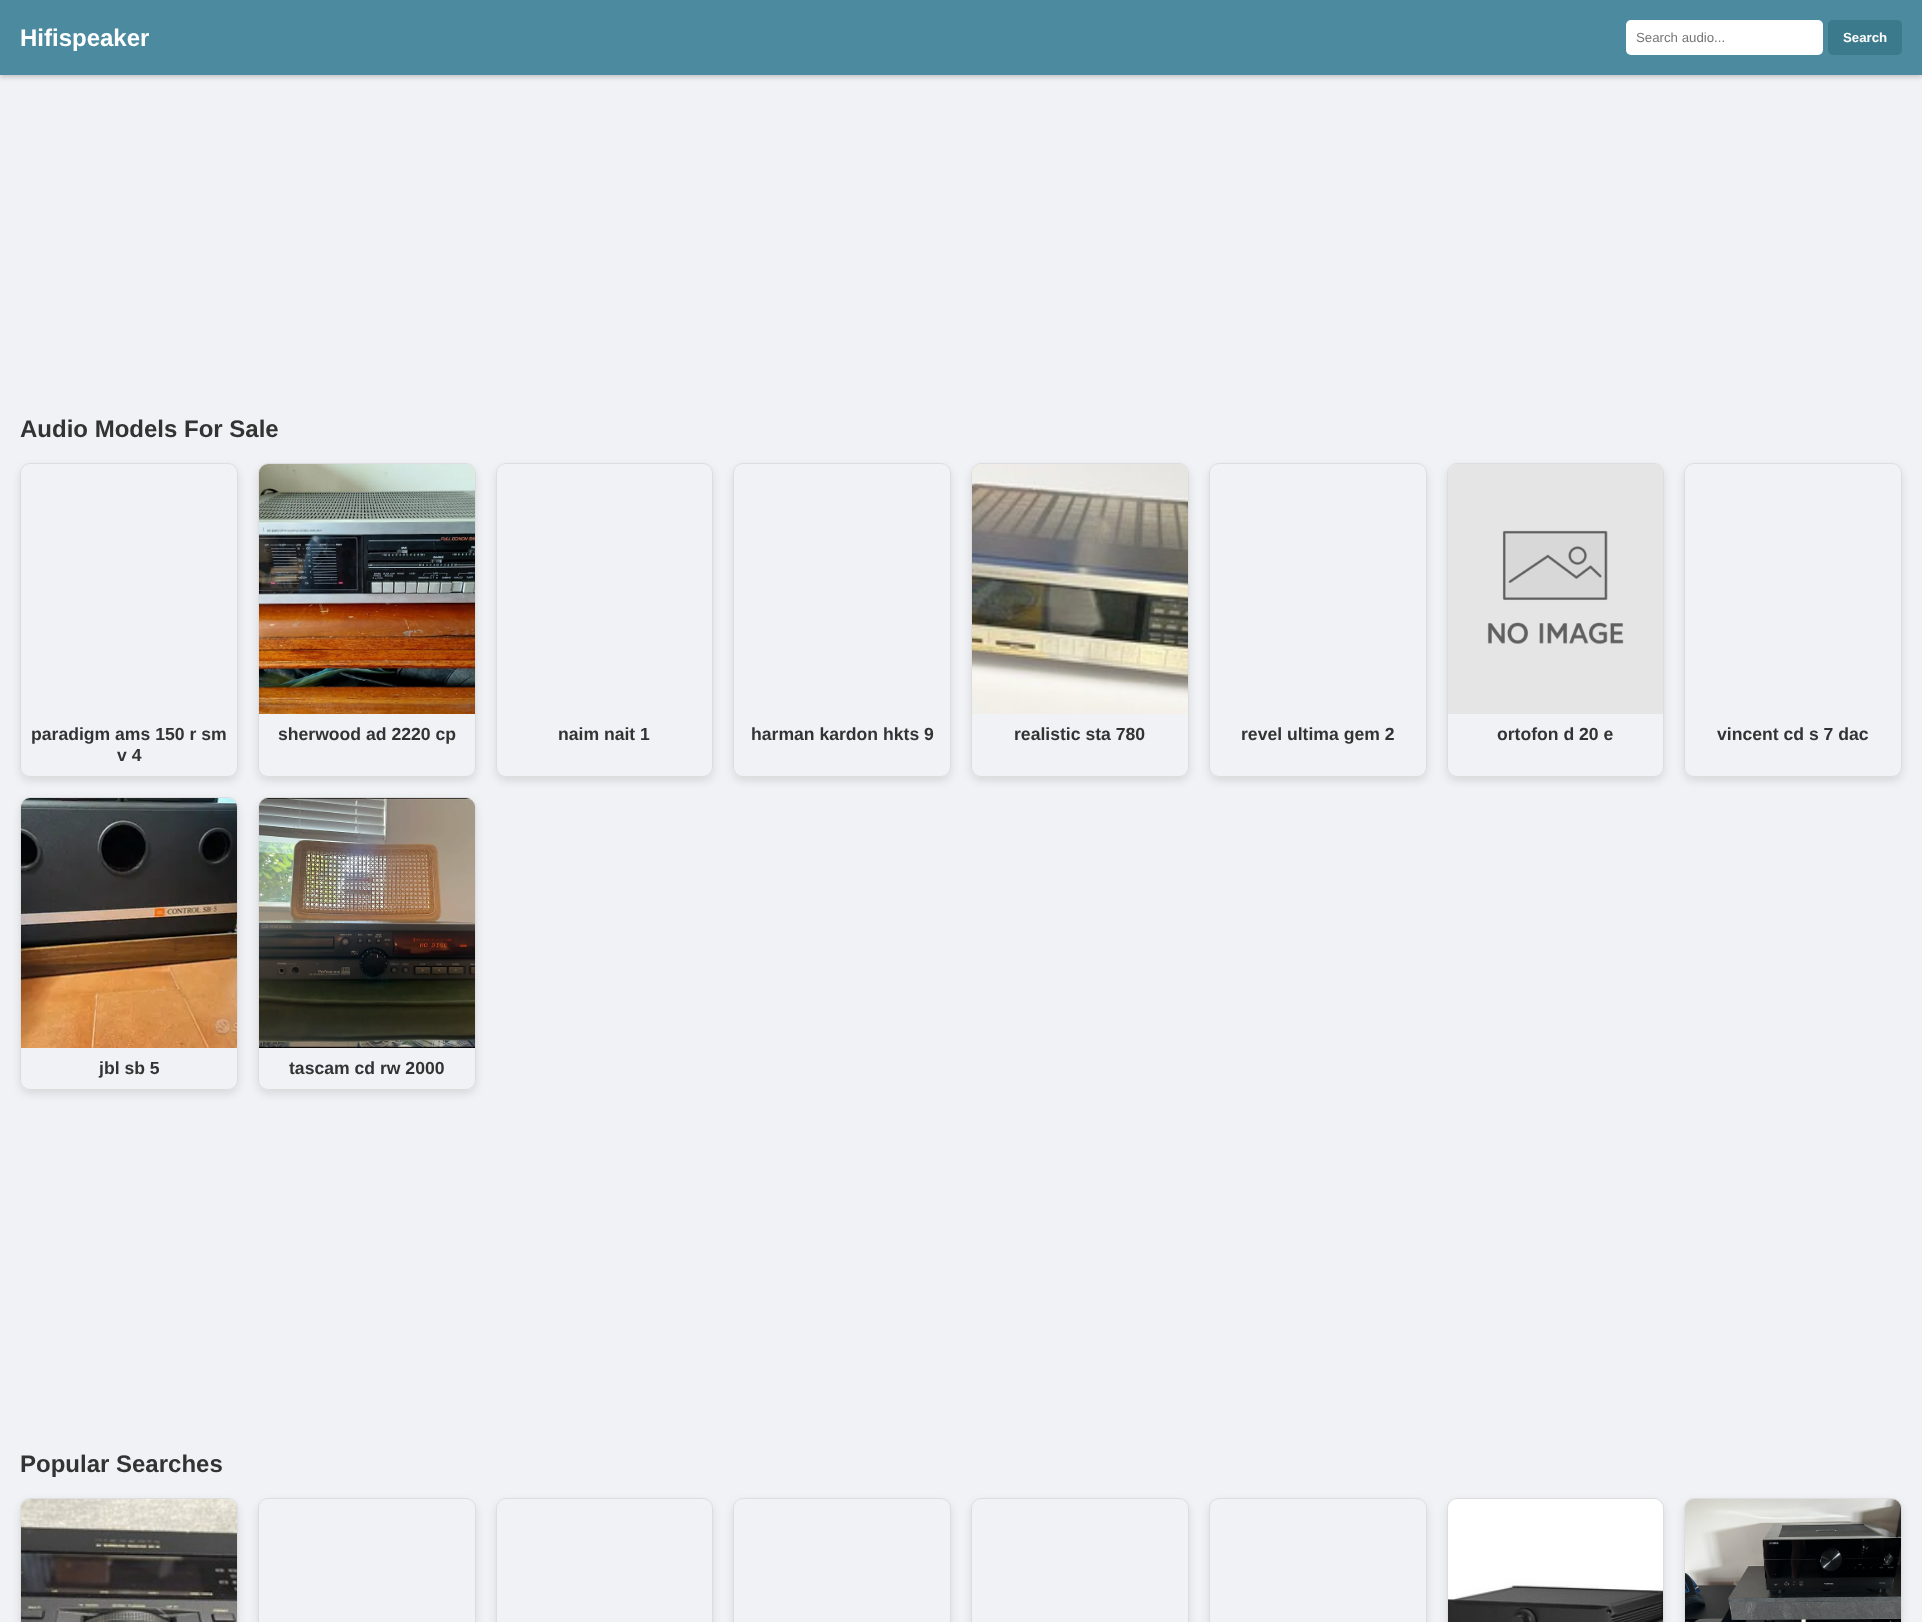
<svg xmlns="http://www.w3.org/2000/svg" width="1922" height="1622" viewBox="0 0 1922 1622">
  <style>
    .t1 { font: bold 24px Liberation Sans; fill: #fff; }
    .t2 { font: 13.25px Liberation Sans; fill: #757575; }
    .t3 { font: bold 13.25px Liberation Sans; fill: #fff; }
    .t4 { font: bold 24px Liberation Sans; fill: #333; }
    .t5 { font: bold 17.6px Liberation Sans; fill: #333; }
  </style>
  <defs>
    <clipPath id="clip1"><path d="M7 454H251V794H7ZM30 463H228C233.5 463 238 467.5 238 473V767C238 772.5 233.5 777 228 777H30C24.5 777 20 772.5 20 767V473C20 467.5 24.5 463 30 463Z" clip-rule="evenodd"/></clipPath>
    <clipPath id="clip2"><path d="M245 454H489V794H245ZM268 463H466C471.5 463 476 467.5 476 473V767C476 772.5 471.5 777 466 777H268C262.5 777 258 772.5 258 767V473C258 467.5 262.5 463 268 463Z" clip-rule="evenodd"/></clipPath>
    <clipPath id="clip3"><path d="M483 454H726V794H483ZM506 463H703C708.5 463 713 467.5 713 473V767C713 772.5 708.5 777 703 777H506C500.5 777 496 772.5 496 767V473C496 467.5 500.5 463 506 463Z" clip-rule="evenodd"/></clipPath>
    <clipPath id="clip4"><path d="M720 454H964V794H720ZM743 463H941C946.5 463 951 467.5 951 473V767C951 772.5 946.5 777 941 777H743C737.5 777 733 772.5 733 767V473C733 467.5 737.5 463 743 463Z" clip-rule="evenodd"/></clipPath>
    <clipPath id="clip5"><path d="M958 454H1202V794H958ZM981 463H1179C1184.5 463 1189 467.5 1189 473V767C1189 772.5 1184.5 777 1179 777H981C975.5 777 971 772.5 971 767V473C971 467.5 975.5 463 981 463Z" clip-rule="evenodd"/></clipPath>
    <clipPath id="clip6"><path d="M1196 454H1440V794H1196ZM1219 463H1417C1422.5 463 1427 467.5 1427 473V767C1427 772.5 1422.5 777 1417 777H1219C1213.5 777 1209 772.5 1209 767V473C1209 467.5 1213.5 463 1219 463Z" clip-rule="evenodd"/></clipPath>
    <clipPath id="clip7"><path d="M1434 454H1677V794H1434ZM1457 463H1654C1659.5 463 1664 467.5 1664 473V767C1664 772.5 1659.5 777 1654 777H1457C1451.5 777 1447 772.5 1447 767V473C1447 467.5 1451.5 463 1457 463Z" clip-rule="evenodd"/></clipPath>
    <clipPath id="clip8"><path d="M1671 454H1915V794H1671ZM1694 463H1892C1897.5 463 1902 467.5 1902 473V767C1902 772.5 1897.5 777 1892 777H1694C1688.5 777 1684 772.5 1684 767V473C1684 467.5 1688.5 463 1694 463Z" clip-rule="evenodd"/></clipPath>
    <clipPath id="clip9"><path d="M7 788H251V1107H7ZM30 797H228C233.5 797 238 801.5 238 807V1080C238 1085.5 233.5 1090 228 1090H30C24.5 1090 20 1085.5 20 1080V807C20 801.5 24.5 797 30 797Z" clip-rule="evenodd"/></clipPath>
    <clipPath id="clip10"><path d="M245 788H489V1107H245ZM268 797H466C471.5 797 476 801.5 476 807V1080C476 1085.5 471.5 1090 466 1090H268C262.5 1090 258 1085.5 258 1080V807C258 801.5 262.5 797 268 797Z" clip-rule="evenodd"/></clipPath>
    <clipPath id="clip11"><path d="M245 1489H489V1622H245ZM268 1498H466C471.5 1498 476 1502.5 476 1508V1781C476 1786.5 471.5 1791 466 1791H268C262.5 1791 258 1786.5 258 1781V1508C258 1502.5 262.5 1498 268 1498Z" clip-rule="evenodd"/></clipPath>
    <clipPath id="clip12"><path d="M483 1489H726V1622H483ZM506 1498H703C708.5 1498 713 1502.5 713 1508V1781C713 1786.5 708.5 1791 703 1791H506C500.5 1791 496 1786.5 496 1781V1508C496 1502.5 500.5 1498 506 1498Z" clip-rule="evenodd"/></clipPath>
    <clipPath id="clip13"><path d="M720 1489H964V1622H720ZM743 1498H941C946.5 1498 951 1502.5 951 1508V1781C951 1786.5 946.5 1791 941 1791H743C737.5 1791 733 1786.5 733 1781V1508C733 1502.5 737.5 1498 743 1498Z" clip-rule="evenodd"/></clipPath>
    <clipPath id="clip14"><path d="M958 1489H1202V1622H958ZM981 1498H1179C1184.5 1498 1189 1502.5 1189 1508V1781C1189 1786.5 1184.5 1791 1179 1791H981C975.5 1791 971 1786.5 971 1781V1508C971 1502.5 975.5 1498 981 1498Z" clip-rule="evenodd"/></clipPath>
    <clipPath id="clip15"><path d="M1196 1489H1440V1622H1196ZM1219 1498H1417C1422.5 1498 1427 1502.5 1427 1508V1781C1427 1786.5 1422.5 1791 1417 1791H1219C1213.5 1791 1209 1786.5 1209 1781V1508C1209 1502.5 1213.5 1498 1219 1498Z" clip-rule="evenodd"/></clipPath>
  </defs>
  <rect width="100%" height="100%" fill="#f0f2f5"/>
  <rect x="0" y="2" width="1922" height="75" fill="#00000033" filter="blur(2.5px)"/>
  <rect x="0" y="0" width="1922" height="75" fill="#4b8a9f"/>
  <text x="20" y="46" class="t1">Hifispeaker</text>
  <rect x="1626" y="20" width="197" height="35" rx="5" fill="#fff"/>
  <text x="1636" y="42" class="t2">Search audio...</text>
  <rect x="1828" y="20" width="74" height="35" rx="5" fill="#3b7a8c"/>
  <text x="1843" y="42" class="t3">Search</text>
  <text x="20" y="437" class="t4">Audio Models For Sale</text>
  <g clip-path="url(#clip1)">
    <rect x="20" y="467" width="218" height="314" rx="10" fill="#0000001a" filter="blur(4px)"/>
  </g>
  <rect x="20.5" y="463.5" width="217" height="313" rx="9.5" fill="none" stroke="#ddd"/>
  <text x="31" y="740" class="t5">paradigm ams 150 r sm</text>
  <text x="117" y="761" class="t5">v 4</text>
  <g clip-path="url(#clip2)">
    <rect x="258" y="467" width="218" height="314" rx="10" fill="#0000001a" filter="blur(4px)"/>
  </g>
  <rect x="258.5" y="463.5" width="217" height="313" rx="9.5" fill="none" stroke="#ddd"/>
  <image x="259" y="464" width="216" height="250" href="images/1.png"/>
  <text x="278" y="740" class="t5">sherwood ad 2220 cp</text>
  <g clip-path="url(#clip3)">
    <rect x="496" y="467" width="217" height="314" rx="10" fill="#0000001a" filter="blur(4px)"/>
  </g>
  <rect x="496.5" y="463.5" width="216" height="313" rx="9.5" fill="none" stroke="#ddd"/>
  <text x="558" y="740" class="t5">naim nait 1</text>
  <g clip-path="url(#clip4)">
    <rect x="733" y="467" width="218" height="314" rx="10" fill="#0000001a" filter="blur(4px)"/>
  </g>
  <rect x="733.5" y="463.5" width="217" height="313" rx="9.5" fill="none" stroke="#ddd"/>
  <text x="751" y="740" class="t5">harman kardon hkts 9</text>
  <g clip-path="url(#clip5)">
    <rect x="971" y="467" width="218" height="314" rx="10" fill="#0000001a" filter="blur(4px)"/>
  </g>
  <rect x="971.5" y="463.5" width="217" height="313" rx="9.5" fill="none" stroke="#ddd"/>
  <image x="972" y="464" width="216" height="250" href="images/2.png"/>
  <text x="1014" y="740" class="t5">realistic sta 780</text>
  <g clip-path="url(#clip6)">
    <rect x="1209" y="467" width="218" height="314" rx="10" fill="#0000001a" filter="blur(4px)"/>
  </g>
  <rect x="1209.5" y="463.5" width="217" height="313" rx="9.5" fill="none" stroke="#ddd"/>
  <text x="1241" y="740" class="t5">revel ultima gem 2</text>
  <g clip-path="url(#clip7)">
    <rect x="1447" y="467" width="217" height="314" rx="10" fill="#0000001a" filter="blur(4px)"/>
  </g>
  <rect x="1447.5" y="463.5" width="216" height="313" rx="9.5" fill="none" stroke="#ddd"/>
  <image x="1448" y="464" width="215" height="250" href="images/3.png"/>
  <text x="1497" y="740" class="t5">ortofon d 20 e</text>
  <g clip-path="url(#clip8)">
    <rect x="1684" y="467" width="218" height="314" rx="10" fill="#0000001a" filter="blur(4px)"/>
  </g>
  <rect x="1684.5" y="463.5" width="217" height="313" rx="9.5" fill="none" stroke="#ddd"/>
  <text x="1717" y="740" class="t5">vincent cd s 7 dac</text>
  <g clip-path="url(#clip9)">
    <rect x="20" y="801" width="218" height="293" rx="10" fill="#0000001a" filter="blur(4px)"/>
  </g>
  <rect x="20.5" y="797.5" width="217" height="292" rx="9.5" fill="none" stroke="#ddd"/>
  <image x="21" y="798" width="216" height="250" href="images/4.png"/>
  <text x="99" y="1074" class="t5">jbl sb 5</text>
  <g clip-path="url(#clip10)">
    <rect x="258" y="801" width="218" height="293" rx="10" fill="#0000001a" filter="blur(4px)"/>
  </g>
  <rect x="258.5" y="797.5" width="217" height="292" rx="9.5" fill="none" stroke="#ddd"/>
  <image x="259" y="798" width="216" height="250" href="images/5.png"/>
  <text x="289" y="1074" class="t5">tascam cd rw 2000</text>
  <text x="20" y="1472" class="t4">Popular Searches</text>
  <rect x="20" y="1502" width="218" height="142" rx="10" fill="#0000001a" filter="blur(4px)"/>
  <rect x="20.5" y="1498.5" width="217" height="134" rx="9.5" fill="none" stroke="#ddd"/>
  <image x="21" y="1499" width="216" height="123" href="images/6.png"/>
  <g clip-path="url(#clip11)">
    <rect x="258" y="1502" width="218" height="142" rx="10" fill="#0000001a" filter="blur(4px)"/>
  </g>
  <rect x="258.5" y="1498.5" width="217" height="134" rx="9.5" fill="none" stroke="#ddd"/>
  <g clip-path="url(#clip12)">
    <rect x="496" y="1502" width="217" height="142" rx="10" fill="#0000001a" filter="blur(4px)"/>
  </g>
  <rect x="496.5" y="1498.5" width="216" height="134" rx="9.5" fill="none" stroke="#ddd"/>
  <g clip-path="url(#clip13)">
    <rect x="733" y="1502" width="218" height="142" rx="10" fill="#0000001a" filter="blur(4px)"/>
  </g>
  <rect x="733.5" y="1498.5" width="217" height="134" rx="9.5" fill="none" stroke="#ddd"/>
  <g clip-path="url(#clip14)">
    <rect x="971" y="1502" width="218" height="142" rx="10" fill="#0000001a" filter="blur(4px)"/>
  </g>
  <rect x="971.5" y="1498.5" width="217" height="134" rx="9.5" fill="none" stroke="#ddd"/>
  <g clip-path="url(#clip15)">
    <rect x="1209" y="1502" width="218" height="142" rx="10" fill="#0000001a" filter="blur(4px)"/>
  </g>
  <rect x="1209.5" y="1498.5" width="217" height="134" rx="9.5" fill="none" stroke="#ddd"/>
  <rect x="1447" y="1502" width="217" height="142" rx="10" fill="#0000001a" filter="blur(4px)"/>
  <rect x="1447.5" y="1498.5" width="216" height="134" rx="9.5" fill="none" stroke="#ddd"/>
  <image x="1448" y="1499" width="215" height="123" href="images/7.png"/>
  <rect x="1684" y="1502" width="218" height="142" rx="10" fill="#0000001a" filter="blur(4px)"/>
  <rect x="1684.5" y="1498.5" width="217" height="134" rx="9.5" fill="none" stroke="#ddd"/>
  <image x="1685" y="1499" width="216" height="123" href="images/8.png"/>
</svg>
